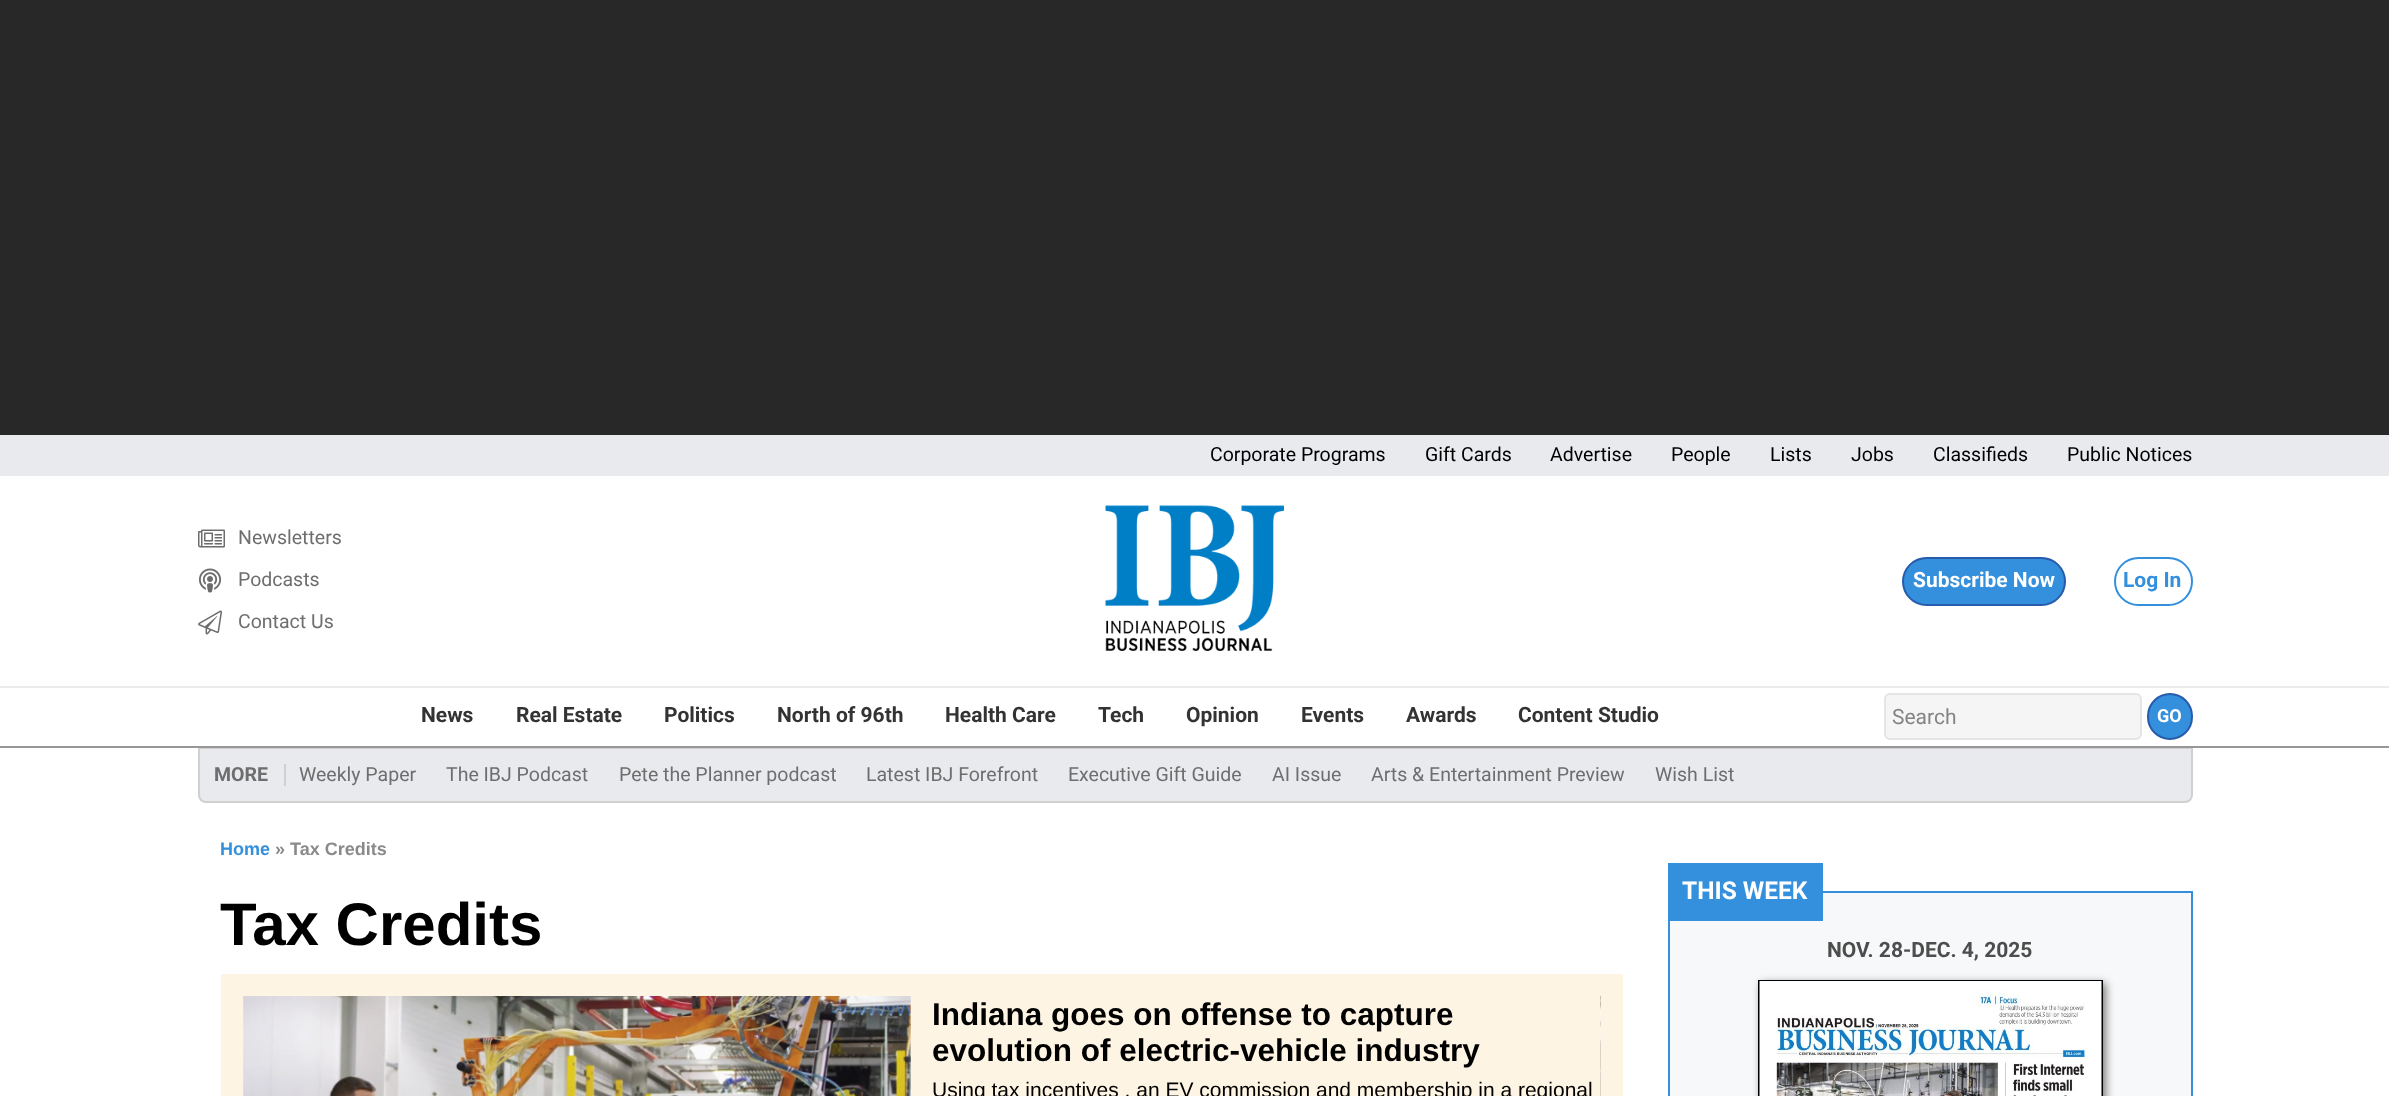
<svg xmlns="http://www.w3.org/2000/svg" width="2389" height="1096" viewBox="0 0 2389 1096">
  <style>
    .t1 { font: 19.5px Roboto; fill: #000; }
    .t2 { font: 19.5px Roboto; fill: #6e6e6e; }
    .t3 { font: bold 21px Roboto; fill: #fff; }
    .t4 { font: bold 21px Roboto; fill: #3490dc; }
    .t5 { font: bold 21px Roboto; fill: #333; }
    .t6 { font: 21px Roboto; fill: #848484; }
    .t7 { font: bold 18px Roboto; fill: #fff; }
    .t8 { font: bold 19.5px Roboto; fill: #6e6e6e; }
    .t9 { font: bold 18px Liberation Sans; fill: #3490dc; }
    .t10 { font: bold 18px Liberation Sans; fill: #8a8a8b; }
    .t11 { font: bold 60px Liberation Sans; fill: #000; }
    .t12 { font: bold 31.5px Liberation Sans; fill: #000; }
    .t13 { font: 21px Liberation Sans; fill: #000; }
    .t14 { font: bold 24.5px Roboto; fill: #fff; }
    .t15 { font: bold 21px Roboto; fill: #4d4d4d; }
  </style>
  <rect width="100%" height="100%" fill="#fff"/>
  <rect x="0" y="0" width="2389" height="435" fill="#282828"/>
  <rect x="0" y="435" width="2389" height="41" fill="#e9eaee"/>
  <text x="1210" y="461" class="t1">Corporate Programs</text>
  <text x="1425" y="461" class="t1">Gift Cards</text>
  <text x="1550" y="461" class="t1">Advertise</text>
  <text x="1671" y="461" class="t1">People</text>
  <text x="1770" y="461" class="t1">Lists</text>
  <text x="1851" y="461" class="t1">Jobs</text>
  <text x="1933" y="461" class="t1">Classifieds</text>
  <text x="2067" y="461" class="t1">Public Notices</text>
  <image x="198" y="529" width="27" height="19" href="images/1.png"/>
  <text x="238" y="544" class="t2">Newsletters</text>
  <image x="198" y="568" width="24" height="25" href="images/2.png"/>
  <text x="238" y="586" class="t2">Podcasts</text>
  <image x="198" y="610" width="24" height="25" href="images/3.png"/>
  <text x="238" y="628" class="t2">Contact Us</text>
  <image x="1105" y="505" width="179" height="146" href="images/4.png"/>
  <rect x="1903" y="558" width="162" height="47" rx="23.5" fill="#3490dc" stroke="#275bab" stroke-width="2"/>
  <text x="1913" y="587" class="t3">Subscribe Now</text>
  <rect x="2115" y="558" width="77" height="47" rx="23.5" fill="none" stroke="#3490dc" stroke-width="2"/>
  <text x="2123" y="587" class="t4">Log In</text>
  <rect x="0" y="686" width="2389" height="2" fill="#ebebeb"/>
  <path d="M199 748H2192V795C2192 799 2189 802 2185 802H206C202 802 199 799 199 795Z" fill="#e9eaee" stroke="#d0d0d0" stroke-width="2"/>
  <rect x="0" y="746" width="2389" height="2" fill="#979797"/>
  <text x="421" y="722" class="t5">News</text>
  <text x="516" y="722" class="t5">Real Estate</text>
  <text x="664" y="722" class="t5">Politics</text>
  <text x="777" y="722" class="t5">North of 96th</text>
  <text x="945" y="722" class="t5">Health Care</text>
  <text x="1098" y="722" class="t5">Tech</text>
  <text x="1186" y="722" class="t5">Opinion</text>
  <text x="1301" y="722" class="t5">Events</text>
  <text x="1406" y="722" class="t5">Awards</text>
  <text x="1518" y="722" class="t5">Content Studio</text>
  <rect x="1885" y="694" width="256" height="45" rx="5" fill="#f5f5f5" stroke="#e5e5e5" stroke-width="2"/>
  <text x="1892" y="724" class="t6">Search</text>
  <rect x="2148" y="694" width="44" height="45" rx="22" fill="#3490dc" stroke="#275bab" stroke-width="2"/>
  <text x="2157" y="722" class="t7">GO</text>
  <rect x="284" y="764" width="2" height="22" fill="#d0d0d0"/>
  <text x="214" y="781" class="t8">MORE</text>
  <text x="299" y="781" class="t2">Weekly Paper</text>
  <text x="446" y="781" class="t2">The IBJ Podcast</text>
  <text x="619" y="781" class="t2">Pete the Planner podcast</text>
  <text x="866" y="781" class="t2">Latest IBJ Forefront</text>
  <text x="1068" y="781" class="t2">Executive Gift Guide</text>
  <text x="1272" y="781" class="t2">AI Issue</text>
  <text x="1371" y="781" class="t2">Arts &amp; Entertainment Preview</text>
  <text x="1655" y="781" class="t2">Wish List</text>
  <text x="220" y="855" class="t9">Home</text>
  <text x="275" y="855" class="t10">» Tax Credits</text>
  <text x="220" y="945" class="t11">Tax Credits</text>
  <rect x="221" y="974" width="1402" height="122" fill="#fdf4e3"/>
  <image x="243" y="996" width="668" height="100" href="images/5.png"/>
  <text x="932" y="1025" class="t12">Indiana goes on offense to capture</text>
  <text x="932" y="1061" class="t12">evolution of electric-vehicle industry</text>
  <text x="932" y="1097" class="t13">Using tax incentives , an EV commission and membership in a regional</text>
  <image x="1600" y="996" width="1" height="100" href="images/6.png"/>
  <rect x="1669" y="892" width="523" height="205" fill="#f7f8f9" stroke="#3490dc" stroke-width="2"/>
  <rect x="1668" y="863" width="155" height="58" fill="#3490dc"/>
  <text x="1682" y="899" class="t14">THIS WEEK</text>
  <text x="1827" y="957" class="t15">NOV. 28-DEC. 4, 2025</text>
  <rect x="1761" y="983" width="345" height="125" fill="#00000080" filter="blur(4px)"/>
  <rect x="1759" y="981" width="343" height="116" fill="none" stroke="#000" stroke-width="2"/>
  <image x="1759" y="981" width="343" height="115" href="images/7.png"/>
</svg>
